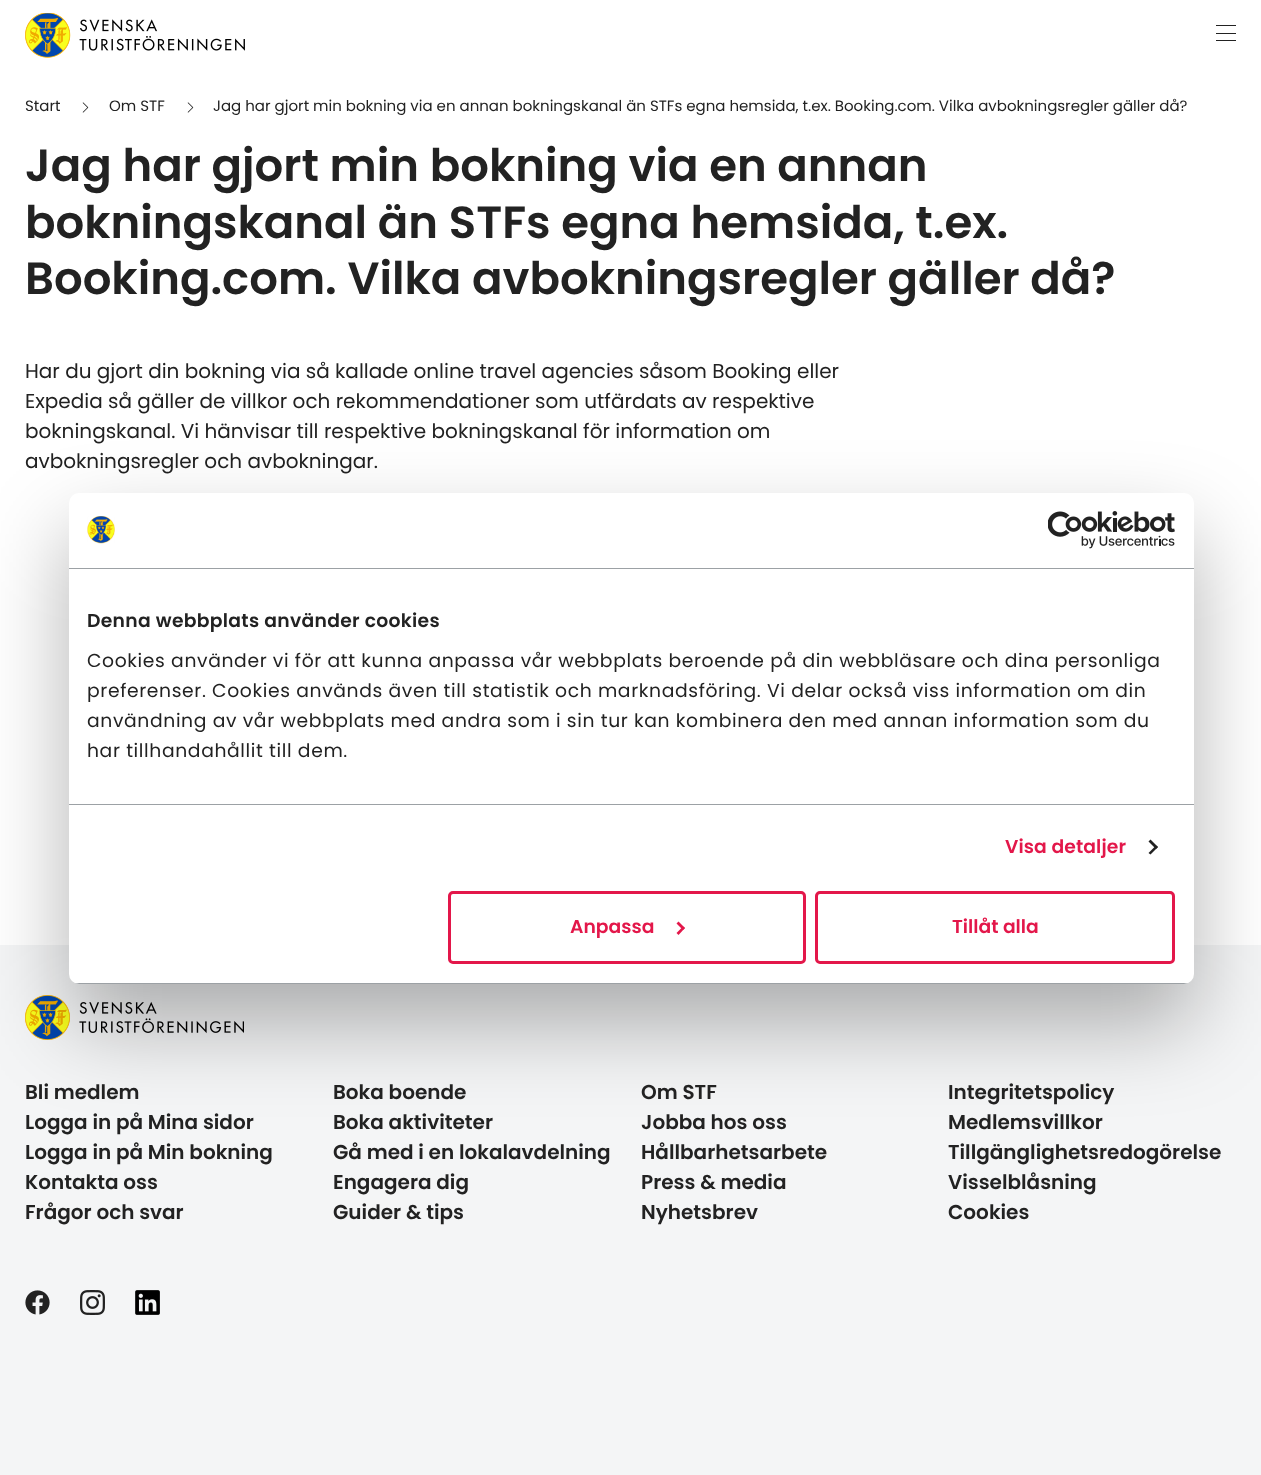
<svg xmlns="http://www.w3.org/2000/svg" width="1261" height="1475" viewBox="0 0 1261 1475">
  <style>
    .t1 { font: 15px Poppins; fill: #222; }
    .t2 { font: 600 45px Poppins; fill: #222; }
    .t3 { font: 20px Poppins; fill: #222; }
    .t4 { font: 600 18.75px Poppins; letter-spacing: 0.3px; fill: #222; }
    .t5 { font: 18.75px Poppins; letter-spacing: 0.62px; fill: #222; }
    .t6 { font: 600 18.75px Poppins; letter-spacing: 0.1px; fill: #e3174a; }
    .t7 { font: 600 18.75px Poppins; fill: #e3174a; }
    .t8 { font: 600 20px Poppins; fill: #222; }
  </style>
  <defs>
    <clipPath id="clip1"><rect x="69" y="493" width="1125" height="491" rx="10"/></clipPath>
  </defs>
  <rect width="100%" height="100%" fill="#fff"/>
  <image x="25" y="13" width="220" height="45" href="images/1.png"/>
  <rect x="1216" y="25" width="20" height="1" fill="#222"/>
  <rect x="1216" y="33" width="20" height="1" fill="#222"/>
  <rect x="1216" y="40" width="20" height="1" fill="#222"/>
  <text x="25" y="111" class="t1">Start</text>
  <image x="82" y="102" width="7" height="11" href="images/2.png"/>
  <text x="109" y="111" class="t1">Om STF</text>
  <image x="187" y="102" width="7" height="11" href="images/2.png"/>
  <text x="213" y="111" class="t1">Jag har gjort min bokning via en annan bokningskanal än STFs egna hemsida, t.ex. Booking.com. Vilka avbokningsregler gäller då?</text>
  <text x="25" y="181" class="t2">Jag har gjort min bokning via en annan</text>
  <text x="25" y="238" class="t2">bokningskanal än STFs egna hemsida, t.ex.</text>
  <text x="25" y="294" class="t2">Booking.com. Vilka avbokningsregler gäller då?</text>
  <text x="25" y="378" class="t3">Har du gjort din bokning via så kallade online travel agencies såsom Booking eller</text>
  <text x="25" y="408" class="t3">Expedia så gäller de villkor och rekommendationer som utfärdats av respektive</text>
  <text x="25" y="438" class="t3">bokningskanal. Vi hänvisar till respektive bokningskanal för information om</text>
  <text x="25" y="468" class="t3">avbokningsregler och avbokningar.</text>
  <rect x="0" y="945" width="1261" height="530" fill="#f4f5f6"/>
  <image x="25" y="995" width="219" height="45" href="images/5.png"/>
  <rect x="69" y="533" width="1125" height="491" rx="10" fill="#0000004d" filter="blur(42.5px)"/>
  <rect x="69" y="493" width="1125" height="491" rx="10" fill="#fff"/>
  <rect x="69" y="568" width="1125" height="1" fill="#9ca1a5"/>
  <image x="87" y="516" width="28" height="28" href="images/3.png"/>
  <image x="1048" y="511" width="127" height="38" href="images/4.png"/>
  <rect x="69" y="804" width="1125" height="1" fill="#9ca1a5"/>
  <text x="87" y="627" class="t4">Denna webbplats använder cookies</text>
  <text x="87" y="667" class="t5">Cookies använder vi för att kunna anpassa vår webbplats beroende på din webbläsare och dina personliga</text>
  <text x="87" y="697" class="t5">preferenser. Cookies används även till statistik och marknadsföring. Vi delar också viss information om din</text>
  <text x="87" y="727" class="t5">användning av vår webbplats med andra som i sin tur kan kombinera den med annan information som du</text>
  <text x="87" y="757" class="t5">har tillhandahållit till dem.</text>
  <text x="1005" y="853" class="t6">Visa detaljer</text>
  <path d="M1150.5 839.5L1158 847L1156 849L1148.5 841.5Z" fill="#222"/>
  <path d="M1156 845.5L1158 847L1150.5 854.5L1148.5 853Z" fill="#222"/>
  <g clip-path="url(#clip1)">
    <rect x="69" y="983" width="1125" height="1" fill="#9ca1a5"/>
  </g>
  <rect x="449.5" y="892.5" width="355" height="70" rx="3.5" fill="none" stroke="#e3174a" stroke-width="3"/>
  <text x="570" y="933" class="t7">Anpassa</text>
  <path d="M678.5 921.5L685 928L683 930L676.5 923.5Z" fill="#e3174a"/>
  <path d="M683 926.5L685 928L678.5 935L676.5 933Z" fill="#e3174a"/>
  <rect x="816.5" y="892.5" width="357" height="70" rx="3.5" fill="none" stroke="#e3174a" stroke-width="3"/>
  <text x="952" y="933" class="t7">Tillåt alla</text>
  <text x="25" y="1099" class="t8">Bli medlem</text>
  <text x="25" y="1129" class="t8">Logga in på Mina sidor</text>
  <text x="25" y="1159" class="t8">Logga in på Min bokning</text>
  <text x="25" y="1189" class="t8">Kontakta oss</text>
  <text x="25" y="1219" class="t8">Frågor och svar</text>
  <text x="333" y="1099" class="t8">Boka boende</text>
  <text x="333" y="1129" class="t8">Boka aktiviteter</text>
  <text x="333" y="1159" class="t8">Gå med i en lokalavdelning</text>
  <text x="333" y="1189" class="t8">Engagera dig</text>
  <text x="333" y="1219" class="t8">Guider &amp; tips</text>
  <text x="641" y="1099" class="t8">Om STF</text>
  <text x="641" y="1129" class="t8">Jobba hos oss</text>
  <text x="641" y="1159" class="t8">Hållbarhetsarbete</text>
  <text x="641" y="1189" class="t8">Press &amp; media</text>
  <text x="641" y="1219" class="t8">Nyhetsbrev</text>
  <text x="948" y="1099" class="t8">Integritetspolicy</text>
  <text x="948" y="1129" class="t8">Medlemsvillkor</text>
  <text x="948" y="1159" class="t8">Tillgänglighetsredogörelse</text>
  <text x="948" y="1189" class="t8">Visselblåsning</text>
  <text x="948" y="1219" class="t8">Cookies</text>
  <image x="25" y="1290" width="25" height="25" href="images/6.png"/>
  <image x="80" y="1290" width="25" height="25" href="images/7.png"/>
  <image x="135" y="1290" width="25" height="25" href="images/8.png"/>
</svg>
